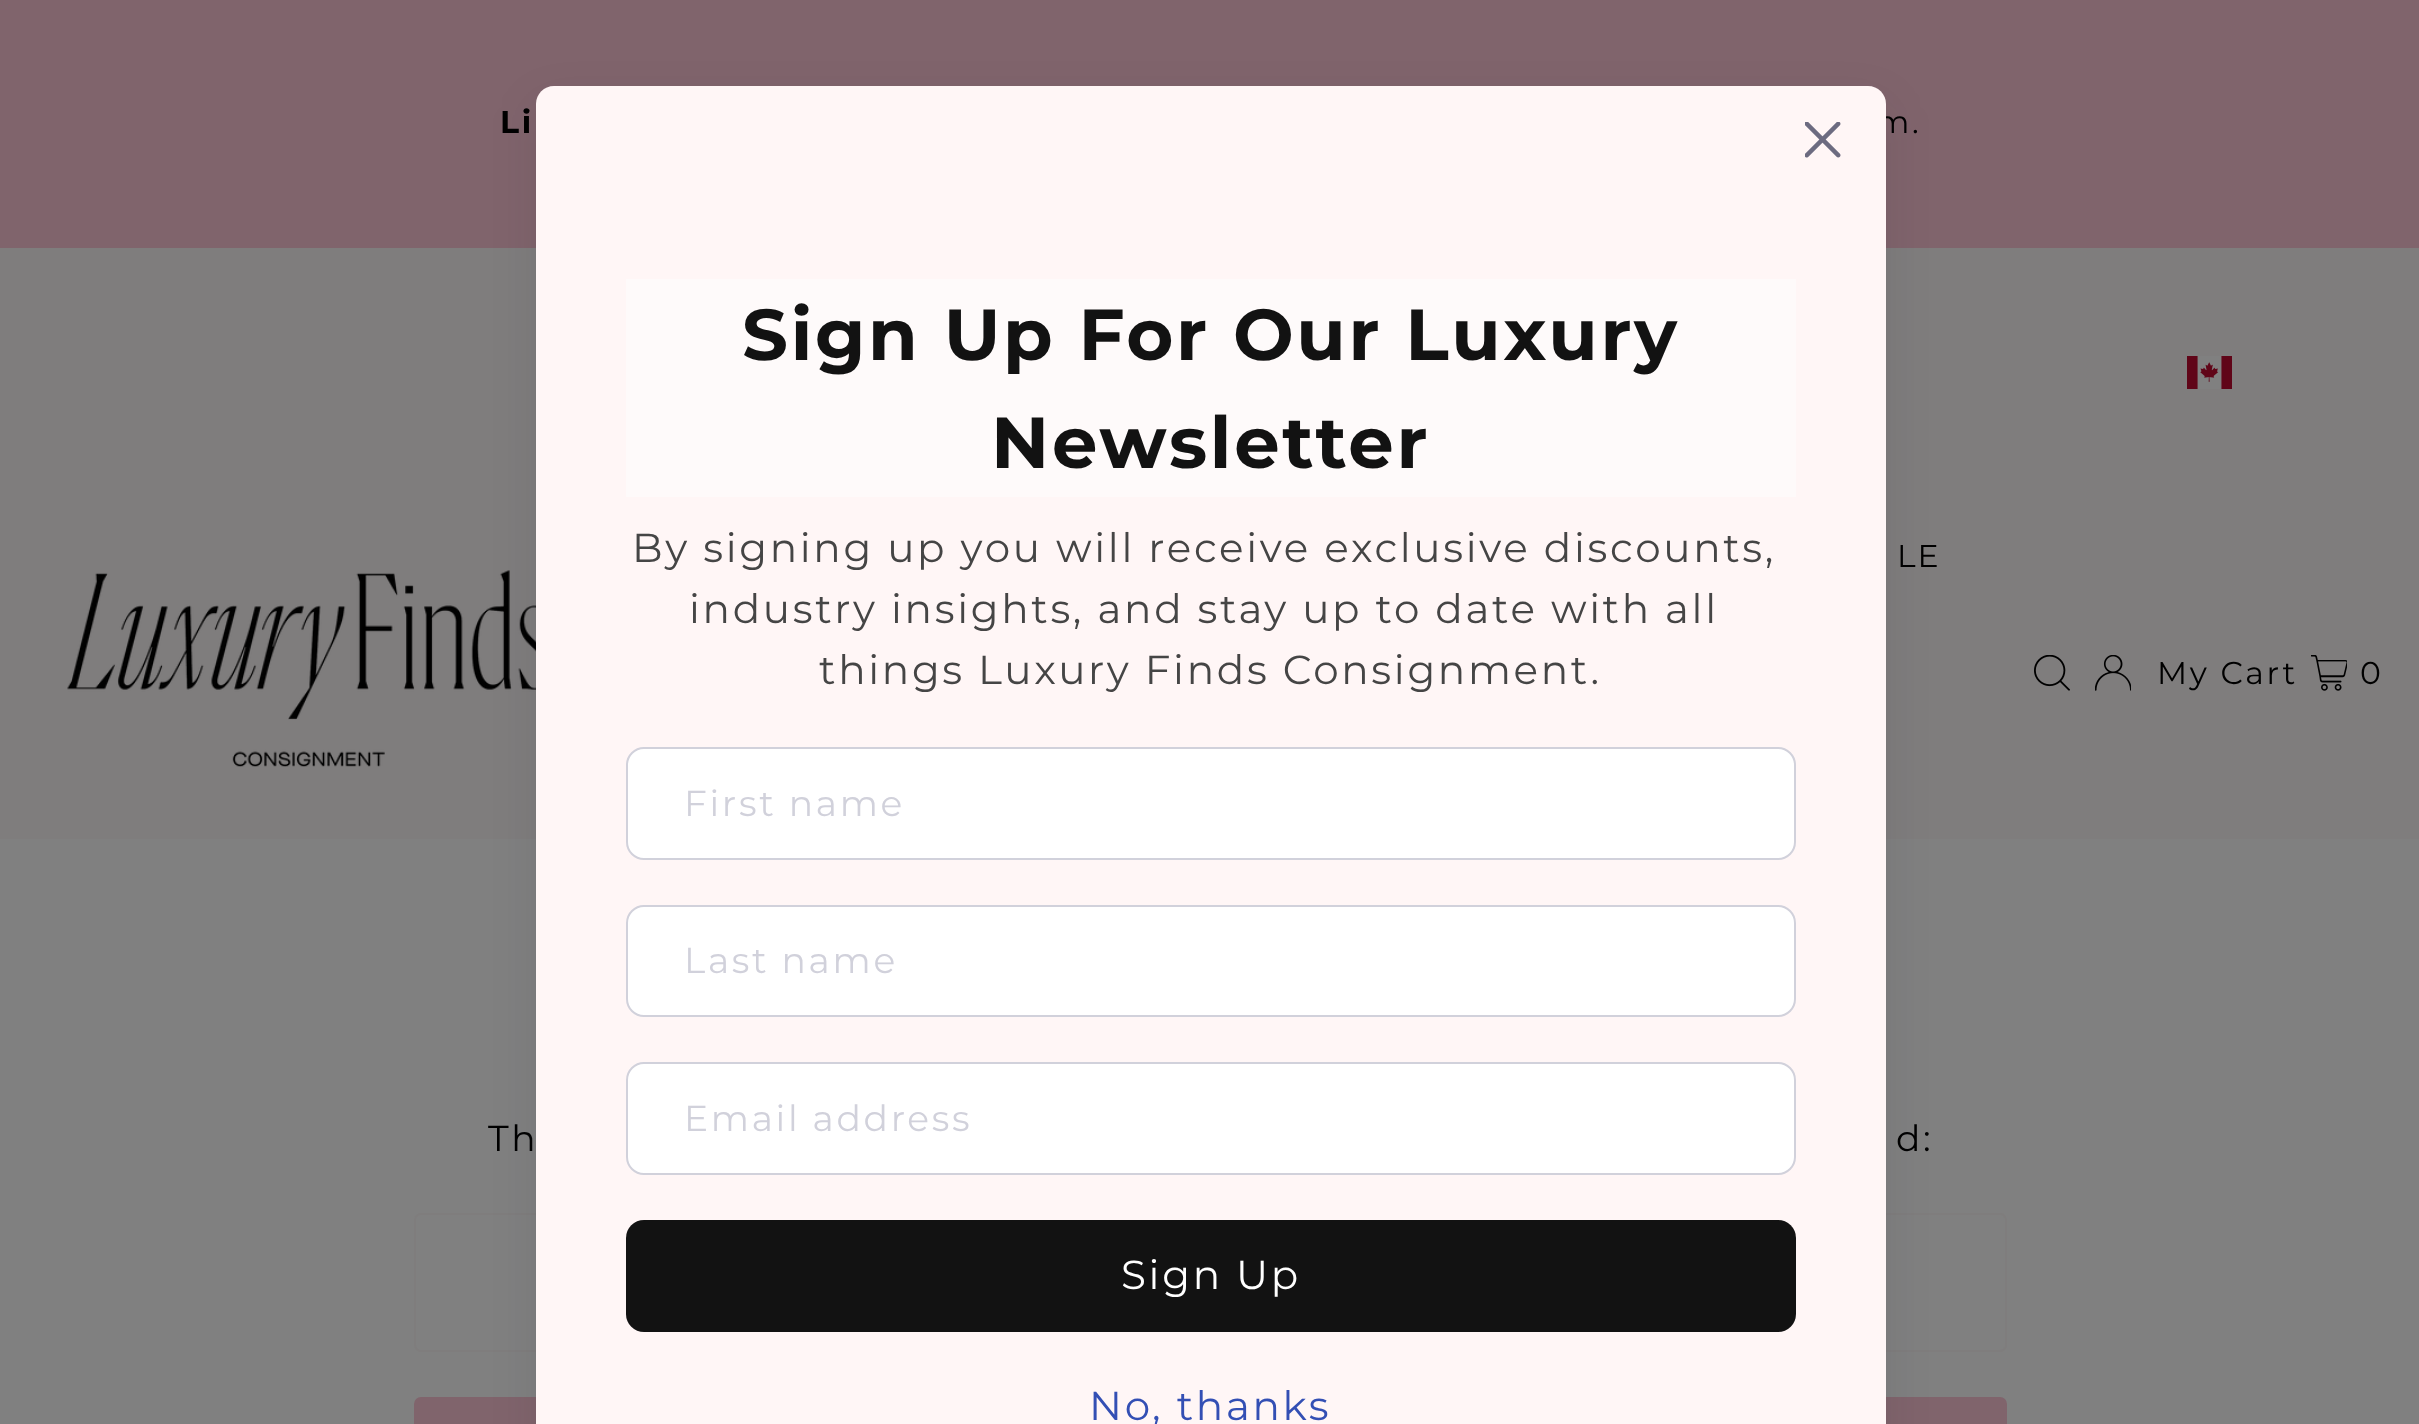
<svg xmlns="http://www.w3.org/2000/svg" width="2419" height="1424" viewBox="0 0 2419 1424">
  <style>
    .t1 { font: bold 31.5px Montserrat; letter-spacing: 2.7px; fill: #000; }
    .t2 { font: 31.5px Montserrat; letter-spacing: 2.7px; fill: #000; }
    .t3 { font: 31.5px Montserrat; letter-spacing: 2px; fill: #000; }
    .t4 { font: 36px Montserrat; letter-spacing: 2.7px; fill: #000; }
    .t5 { font: bold 72px Montserrat; letter-spacing: 2.7px; fill: #121212; }
    .t6 { font: 40.5px Montserrat; letter-spacing: 2.7px; fill: #454545; }
    .t7 { font: 36px Montserrat; letter-spacing: 2.7px; fill: #d1d1db; }
    .t8 { font: 40.5px Montserrat; letter-spacing: 2.7px; fill: #fff; }
    .t9 { font: 40.5px Montserrat; letter-spacing: 2.7px; fill: #334fb4; }
  </style>
  <rect width="100%" height="100%" fill="#808080"/>
  <rect x="0" y="0" width="2419" height="248" fill="#80646c"/>
  <text x="500" y="133" class="t1">Li</text>
  <text x="1876" y="133" class="t2">m.</text>
  <rect x="0" y="248" width="2419" height="591" fill="#7f7d7d"/>
  <image x="2187" y="356" width="45" height="33" href="images/1.png"/>
  <text x="1897" y="567" class="t3">LE</text>
  <image x="67" y="570" width="469" height="197" href="images/2.png"/>
  <image x="2034" y="655" width="36" height="36" href="images/3.png"/>
  <image x="2095" y="655" width="36" height="36" href="images/4.png"/>
  <text x="2157" y="684" class="t2">My Cart</text>
  <image x="2311" y="655" width="36" height="36" href="images/5.png"/>
  <text x="2360" y="684" class="t2">0</text>
  <text x="488" y="1151" class="t4">Th</text>
  <text x="1896" y="1151" class="t4">d:</text>
  <rect x="415" y="1214" width="1591" height="137" rx="6" fill="none" stroke="#7f7d7d" stroke-width="2"/>
  <rect x="414" y="1397" width="1593" height="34" rx="7" fill="#80646c"/>
  <rect x="536" y="104" width="1350" height="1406" rx="18" fill="#1211271a" filter="blur(22.5px)"/>
  <path d="M554 86H1868C1878 86 1886 94 1886 104V1424H536V104C536 94 544 86 554 86Z" fill="#fff6f6"/>
  <image x="1805" y="122" width="36" height="36" href="images/6.png"/>
  <rect x="626" y="279" width="1170" height="218" fill="#fefafa"/>
  <text x="742" y="360" class="t5">Sign Up For Our Luxury</text>
  <text x="991" y="468" class="t5">Newsletter</text>
  <text x="632" y="562" class="t6">By signing up you will receive exclusive discounts,</text>
  <text x="689" y="623" class="t6">industry insights, and stay up to date with all</text>
  <text x="819" y="684" class="t6">things Luxury Finds Consignment.</text>
  <rect x="627" y="748" width="1168" height="111" rx="17" fill="#fff" stroke="#d1d1db" stroke-width="2"/>
  <text x="684" y="816" class="t7">First name</text>
  <rect x="627" y="906" width="1168" height="110" rx="17" fill="#fff" stroke="#d1d1db" stroke-width="2"/>
  <text x="684" y="973" class="t7">Last name</text>
  <rect x="627" y="1063" width="1168" height="111" rx="17" fill="#fff" stroke="#d1d1db" stroke-width="2"/>
  <text x="684" y="1131" class="t7">Email address</text>
  <rect x="626" y="1220" width="1170" height="112" rx="18" fill="#121212"/>
  <text x="1121" y="1289" class="t8">Sign Up</text>
  <text x="1089" y="1420" class="t9">No, thanks</text>
</svg>
